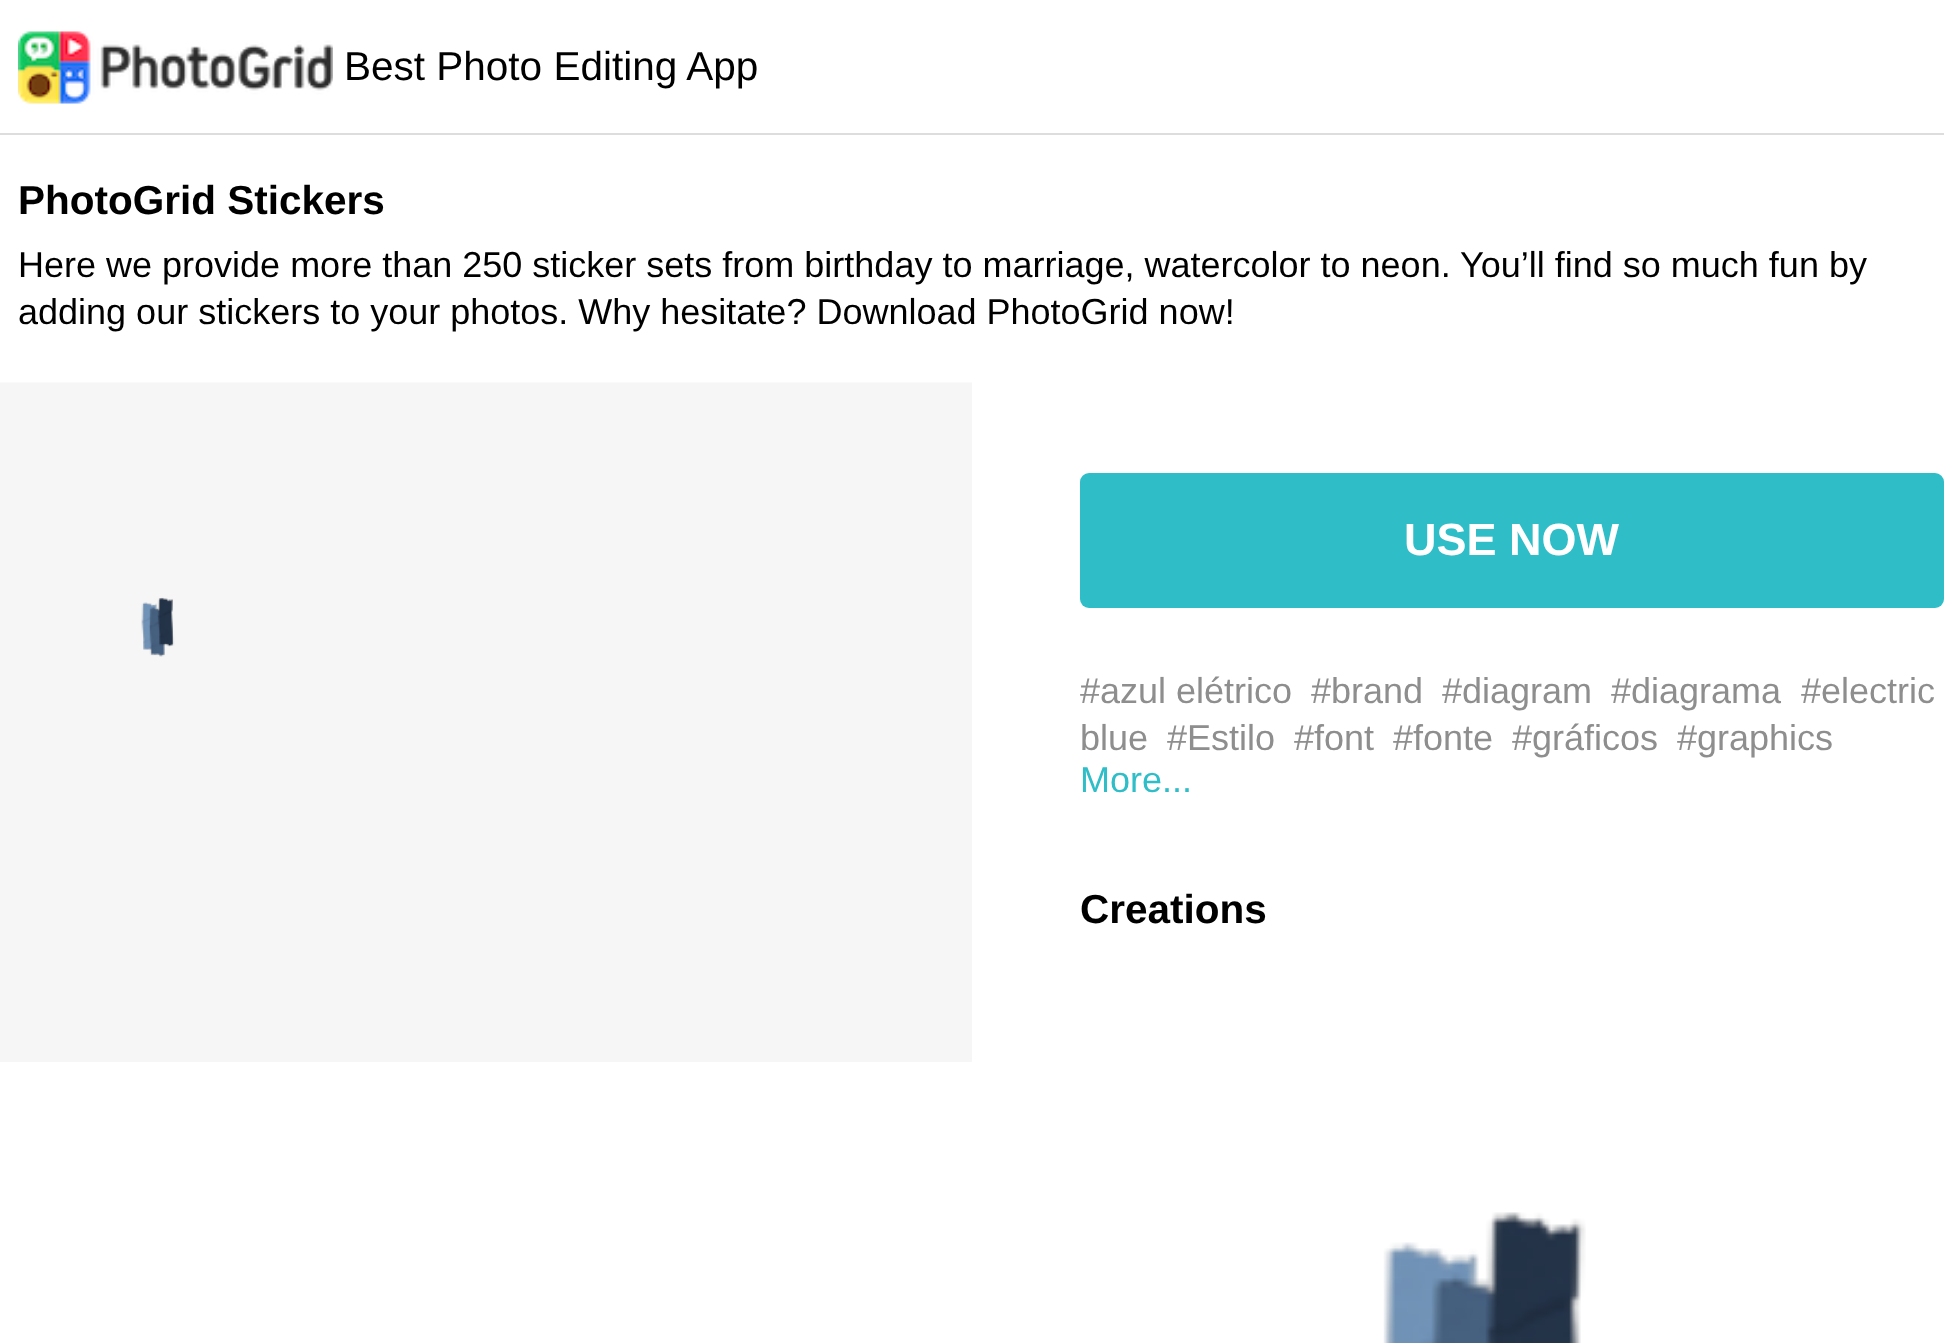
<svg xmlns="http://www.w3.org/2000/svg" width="1944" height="1343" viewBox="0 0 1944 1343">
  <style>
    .t1 { font: 40.5px Liberation Sans; fill: #000; }
    .t2 { font: bold 40.5px Liberation Sans; fill: #000; }
    .t3 { font: 36px Liberation Sans; fill: #000; }
    .t4 { font: bold 45px Liberation Sans; fill: #fff; }
    .t5 { font: 36px Liberation Sans; fill: #8e8e8e; }
    .t6 { font: 36px Liberation Sans; fill: #2fbdc7; }
  </style>
  <rect width="100%" height="100%" fill="#fff"/>
  <rect x="0" y="133" width="1944" height="2" fill="#ddd"/>
  <image x="18" y="31" width="315" height="73" href="images/1.png"/>
  <text x="344" y="80" class="t1">Best Photo Editing App</text>
  <text x="18" y="214" class="t2">PhotoGrid Stickers</text>
  <text x="18" y="277" class="t3">Here we provide more than 250 sticker sets from birthday to marriage, watercolor to neon. You’ll find so much fun by</text>
  <text x="18" y="324" class="t3">adding our stickers to your photos. Why hesitate? Download PhotoGrid now!</text>
  <image x="0" y="382" width="972" height="680" href="images/2.png"/>
  <rect x="1080" y="473" width="864" height="135" rx="9" fill="#2fbdc7"/>
  <text x="1404" y="555" class="t4">USE NOW</text>
  <text x="1080" y="703" class="t5">#azul elétrico</text>
  <text x="1311" y="703" class="t5">#brand</text>
  <text x="1442" y="703" class="t5">#diagram</text>
  <text x="1611" y="703" class="t5">#diagrama</text>
  <text x="1801" y="703" class="t5">#electric</text>
  <text x="1080" y="750" class="t5">blue</text>
  <text x="1167" y="750" class="t5">#Estilo</text>
  <text x="1294" y="750" class="t5">#font</text>
  <text x="1393" y="750" class="t5">#fonte</text>
  <text x="1512" y="750" class="t5">#gráficos</text>
  <text x="1677" y="750" class="t5">#graphics</text>
  <text x="1080" y="792" class="t6">More...</text>
  <text x="1080" y="923" class="t2">Creations</text>
  <image x="1383" y="1212" width="203" height="131" href="images/3.png"/>
</svg>
